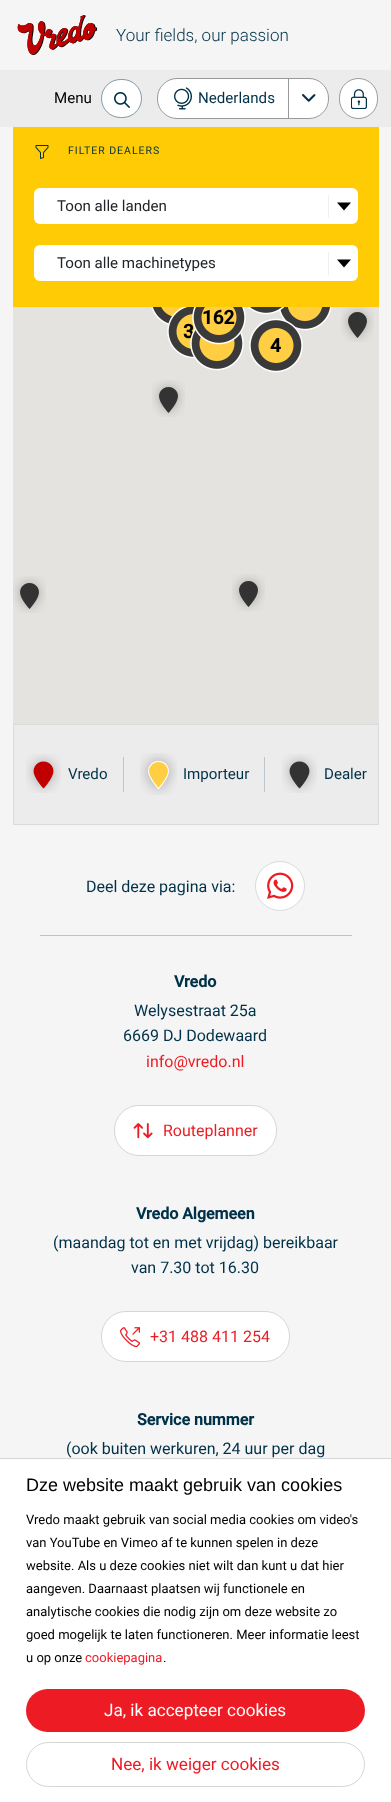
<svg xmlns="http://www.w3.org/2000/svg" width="391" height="1802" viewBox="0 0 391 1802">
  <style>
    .t1 { font: 300 17px Roboto; fill: #003149; }
    .t2 { font: 15.1px Roboto; fill: #000; }
    .t3 { font: 15.1px Roboto; fill: #003149; }
    .t4 { font: 10.5px Roboto; letter-spacing: 1px; fill: #003149; }
    .t5 { font: 15.1px Roboto; fill: #212529; }
    .t6 { font: bold 19px Roboto; fill: #000; }
    .t7 { font: 16px Roboto; fill: #003149; }
    .t8 { font: bold 16px Roboto; fill: #003149; }
    .t9 { font: 16px Roboto; fill: #ed1c24; }
    .t10 { font: 18px Liberation Sans; fill: #000; }
    .t11 { font: 13px Roboto; fill: #000; }
    .t12 { font: 13px Roboto; fill: #ed1c24; }
    .t13 { font: 17.1px Roboto; fill: #fff; }
    .t14 { font: 17.1px Roboto; fill: #ed1c24; }
  </style>
  <rect width="100%" height="100%" fill="#f5f5f5"/>
  <image x="17" y="15" width="81" height="40" href="images/1.png"/>
  <text x="116" y="41" class="t1">Your fields, our passion</text>
  <rect x="0" y="70" width="391" height="57" fill="#ececec"/>
  <text x="54" y="103" class="t2">Menu</text>
  <rect x="101" y="79" width="41" height="39" rx="19.5" fill="#fff"/>
  <rect x="101.5" y="79.5" width="40" height="38" rx="19" fill="none" stroke="#00314980"/>
  <image x="114" y="92" width="16" height="16" href="images/2.png"/>
  <rect x="157" y="78" width="172" height="41" rx="20" fill="#fff"/>
  <rect x="157.5" y="78.5" width="171" height="40" rx="19.5" fill="none" stroke="#33333380"/>
  <image x="174" y="87" width="18" height="23" href="images/3.png"/>
  <rect x="288" y="79" width="1" height="39" fill="#999"/>
  <text x="198" y="103" class="t3">Nederlands</text>
  <image x="302" y="94" width="14" height="8" href="images/4.png"/>
  <rect x="339" y="78" width="39" height="41" rx="19.5" fill="#fff"/>
  <rect x="339.5" y="78.5" width="38" height="40" rx="19" fill="none" stroke="#33333380"/>
  <image x="351" y="89" width="16" height="20" href="images/5.png"/>
  <rect x="13" y="127" width="366" height="180" fill="#ffcb05"/>
  <image x="35" y="145" width="14" height="14" href="images/6.png"/>
  <text x="68" y="154" class="t4">FILTER DEALERS</text>
  <rect x="34" y="188" width="324" height="36" rx="6" fill="#fff"/>
  <path d="M337 202.5L344 210.5L351 202.5Z" fill="#000"/>
  <rect x="328" y="195" width="1" height="23" fill="#efefef"/>
  <text x="57" y="211" class="t5">Toon alle landen</text>
  <rect x="34" y="245" width="324" height="36" rx="6" fill="#fff"/>
  <path d="M337 259.5L344 267.5L351 259.5Z" fill="#000"/>
  <rect x="328" y="252" width="1" height="23" fill="#efefef"/>
  <text x="57" y="268" class="t5">Toon alle machinetypes</text>
  <rect x="13" y="307" width="366" height="417" fill="#e5e3df"/>
  <image x="151" y="307" width="32" height="18" href="images/7.png"/>
  <image x="167" y="307" width="29" height="52" href="images/8.png"/>
  <text x="183" y="338" class="t6">3</text>
  <image x="190" y="328" width="54" height="43" href="images/14.png"/>
  <image x="192" y="307" width="54" height="38" href="images/9.png"/>
  <image x="279" y="307" width="53" height="24" href="images/11.png"/>
  <image x="248" y="307" width="37" height="8" href="images/10.png"/>
  <image x="341" y="307" width="33" height="35" href="images/12.png"/>
  <text x="202" y="324" class="t6">162</text>
  <image x="249" y="318" width="54" height="55" href="images/13.png"/>
  <text x="270" y="352" class="t6">4</text>
  <image x="152" y="380" width="33" height="37" href="images/15.png"/>
  <image x="13" y="576" width="33" height="37" href="images/15.png"/>
  <image x="232" y="574" width="33" height="37" href="images/15.png"/>
  <rect x="13.5" y="724.5" width="365" height="100" fill="#ececec" stroke="#dadada"/>
  <image x="26" y="754" width="35" height="39" href="images/16.png"/>
  <text x="68" y="779" class="t3">Vredo</text>
  <rect x="123" y="757" width="1" height="35" fill="#bdc7cb"/>
  <image x="140" y="753" width="37" height="42" href="images/17.png"/>
  <text x="183" y="779" class="t3">Importeur</text>
  <rect x="264" y="757" width="1" height="35" fill="#bdc7cb"/>
  <image x="282" y="754" width="35" height="39" href="images/18.png"/>
  <text x="324" y="779" class="t3">Dealer</text>
  <text x="86" y="892" class="t7">Deel deze pagina via:</text>
  <circle cx="280" cy="886" r="24.5" fill="#fff" stroke="#dadada"/>
  <image x="267" y="872" width="27" height="27" href="images/19.png"/>
  <rect x="40" y="935" width="312" height="1" fill="#b8c4ca"/>
  <text x="174" y="987" class="t8">Vredo</text>
  <text x="134" y="1016" class="t7">Welysestraat 25a</text>
  <text x="123" y="1041" class="t7">6669 DJ Dodewaard</text>
  <text x="146" y="1067" class="t9">info@vredo.nl</text>
  <rect x="114.5" y="1105.5" width="162" height="50" rx="24.5" fill="#fff" stroke="#d6d6d6"/>
  <image x="133" y="1123" width="20" height="16" href="images/20.png"/>
  <text x="163" y="1136" class="t9">Routeplanner</text>
  <text x="136" y="1219" class="t8">Vredo Algemeen</text>
  <text x="53" y="1248" class="t7">(maandag tot en met vrijdag) bereikbaar</text>
  <text x="131" y="1273" class="t7">van 7.30 tot 16.30</text>
  <rect x="101.5" y="1311.5" width="188" height="50" rx="24.5" fill="#fff" stroke="#d6d6d6"/>
  <image x="120" y="1327" width="20" height="20" href="images/21.png"/>
  <text x="150" y="1342" class="t9">+31 488 411 254</text>
  <text x="137" y="1425" class="t8">Service nummer</text>
  <text x="66" y="1454" class="t7">(ook buiten werkuren, 24 uur per dag</text>
  <rect x="0" y="1459" width="391" height="343" fill="#fff"/>
  <rect x="0" y="1458" width="391" height="1" fill="#d6d6d6"/>
  <text x="26" y="1491" class="t10">Dze website maakt gebruik van cookies</text>
  <text x="26" y="1524" class="t11">Vredo maakt gebruik van social media cookies om video's</text>
  <text x="26" y="1547" class="t11">van YouTube en Vimeo af te kunnen spelen in deze</text>
  <text x="26" y="1570" class="t11">website. Als u deze cookies niet wilt dan kunt u dat hier</text>
  <text x="26" y="1593" class="t11">aangeven. Daarnaast plaatsen wij functionele en</text>
  <text x="26" y="1616" class="t11">analytische cookies die nodig zijn om deze website zo</text>
  <text x="26" y="1639" class="t11">goed mogelijk te laten functioneren. Meer informatie leest</text>
  <text x="26" y="1662" class="t11">u op onze</text>
  <text x="85" y="1662" class="t12">cookiepagina</text>
  <text x="163" y="1662" class="t11">.</text>
  <rect x="26" y="1689" width="339" height="43" rx="21.5" fill="#ed1c24"/>
  <text x="104" y="1716" class="t13">Ja, ik accepteer cookies</text>
  <rect x="26.5" y="1742.5" width="338" height="44" rx="22" fill="none" stroke="#d6d6d6"/>
  <text x="111" y="1770" class="t14">Nee, ik weiger cookies</text>
</svg>
